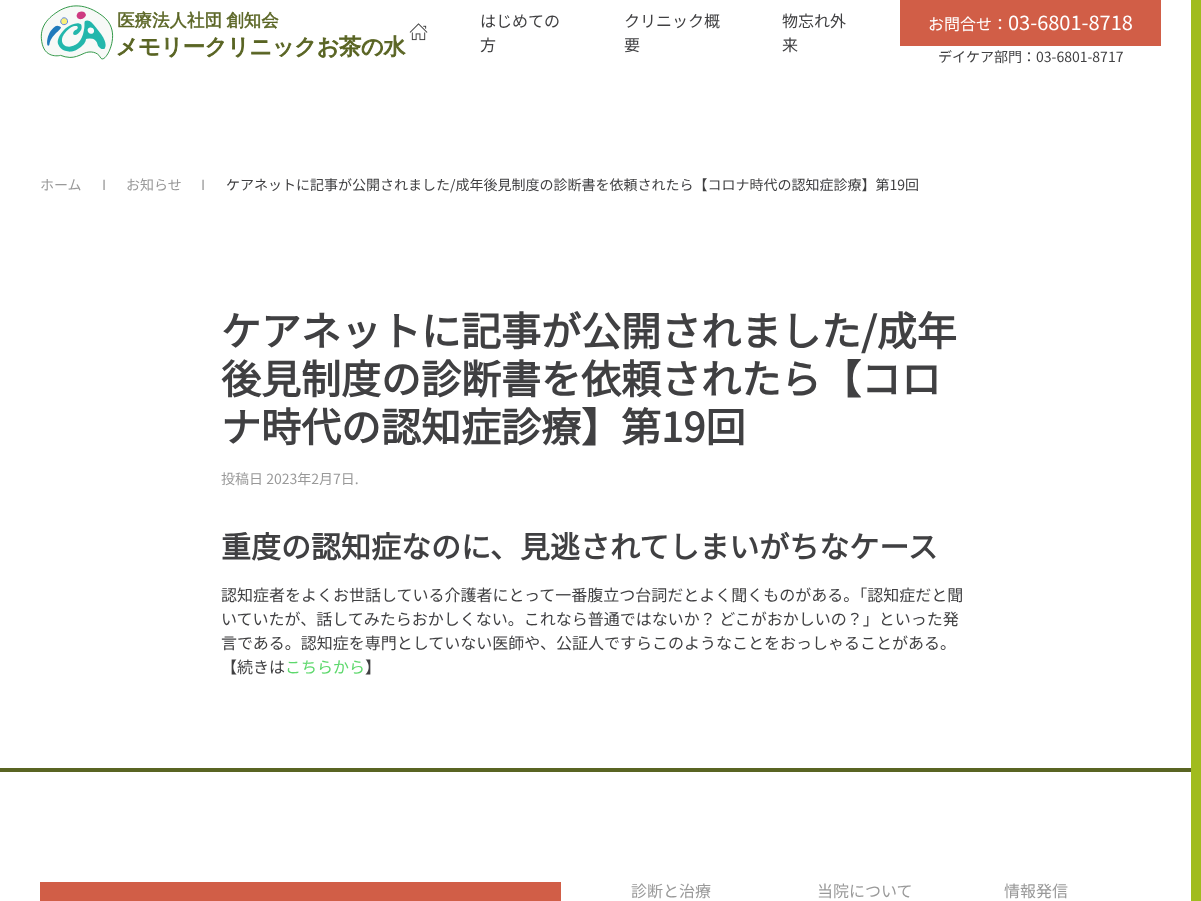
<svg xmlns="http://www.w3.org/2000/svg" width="1201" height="901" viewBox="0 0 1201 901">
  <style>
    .t1 { font: 100 16px Noto Sans JP; fill: #404042; }
    .t2 { font: 100 16px Noto Sans JP; fill: #fff; }
    .t3 { font: 100 20px Noto Sans JP; fill: #fff; }
    .t4 { font: 100 14px Noto Sans JP; fill: #404042; }
    .t5 { font: 100 14px Noto Sans JP; fill: #999; }
    .t6 { font: bold 40px Noto Sans JP; fill: #404042; }
    .t7 { font: bold 30px Noto Sans JP; fill: #404042; }
    .t8 { font: 100 16px Noto Sans JP; fill: #5dd86c; }
    .t9 { font: 100 16px Noto Sans JP; fill: #999; }
  </style>
  <rect width="100%" height="100%" fill="#fff"/>
  <rect x="1191" y="0" width="10" height="901" fill="#a1bc1e"/>
  <image x="40" y="5" width="366" height="55" href="images/1.png"/>
  <image x="409" y="23" width="19" height="18" href="images/2.png"/>
  <text x="480" y="27" class="t1">はじめての</text>
  <text x="480" y="51" class="t1">方</text>
  <text x="624" y="27" class="t1">クリニック概</text>
  <text x="624" y="51" class="t1">要</text>
  <text x="782" y="27" class="t1">物忘れ外</text>
  <text x="782" y="51" class="t1">来</text>
  <rect x="900" y="0" width="261" height="46" fill="#d15e47"/>
  <text x="928" y="30" class="t2">お問合せ：</text>
  <text x="1008" y="30" class="t3">03-6801-8718</text>
  <text x="938" y="62" class="t4">デイケア部門：03-6801-8717</text>
  <text x="40" y="190" class="t5">ホーム</text>
  <text x="102" y="190" class="t5">I</text>
  <text x="126" y="190" class="t5">お知らせ</text>
  <text x="201" y="190" class="t5">I</text>
  <text x="226" y="190" class="t4">ケアネットに記事が公開されました/成年後見制度の診断書を依頼されたら【コロナ時代の認知症診療】第19回</text>
  <text x="221" y="346" class="t6">ケアネットに記事が公開されました/成年</text>
  <text x="221" y="394" class="t6">後見制度の診断書を依頼されたら【コロ</text>
  <text x="221" y="442" class="t6">ナ時代の認知症診療】第19回</text>
  <text x="221" y="484" class="t5">投稿日 2023年2月7日.</text>
  <text x="221" y="558" class="t7">重度の認知症なのに、見逃されてしまいがちなケース</text>
  <text x="221" y="601" class="t1">認知症者をよくお世話している介護者にとって一番腹立つ台詞だとよく聞くものがある。「認知症だと聞</text>
  <text x="221" y="625" class="t1">いていたが、話してみたらおかしくない。これなら普通ではないか？ どこがおかしいの？」といった発</text>
  <text x="221" y="649" class="t1">言である。認知症を専門としていない医師や、公証人ですらこのようなことをおっしゃることがある。</text>
  <text x="221" y="673" class="t1">【続きは</text>
  <text x="285" y="673" class="t8">こちらから</text>
  <text x="365" y="673" class="t1">】</text>
  <rect x="0" y="768" width="1191" height="4" fill="#596423"/>
  <rect x="40" y="882" width="521" height="19" fill="#d15e47"/>
  <text x="631" y="897" class="t9">診断と治療</text>
  <text x="817" y="897" class="t9">当院について</text>
  <text x="1004" y="897" class="t9">情報発信</text>
</svg>
